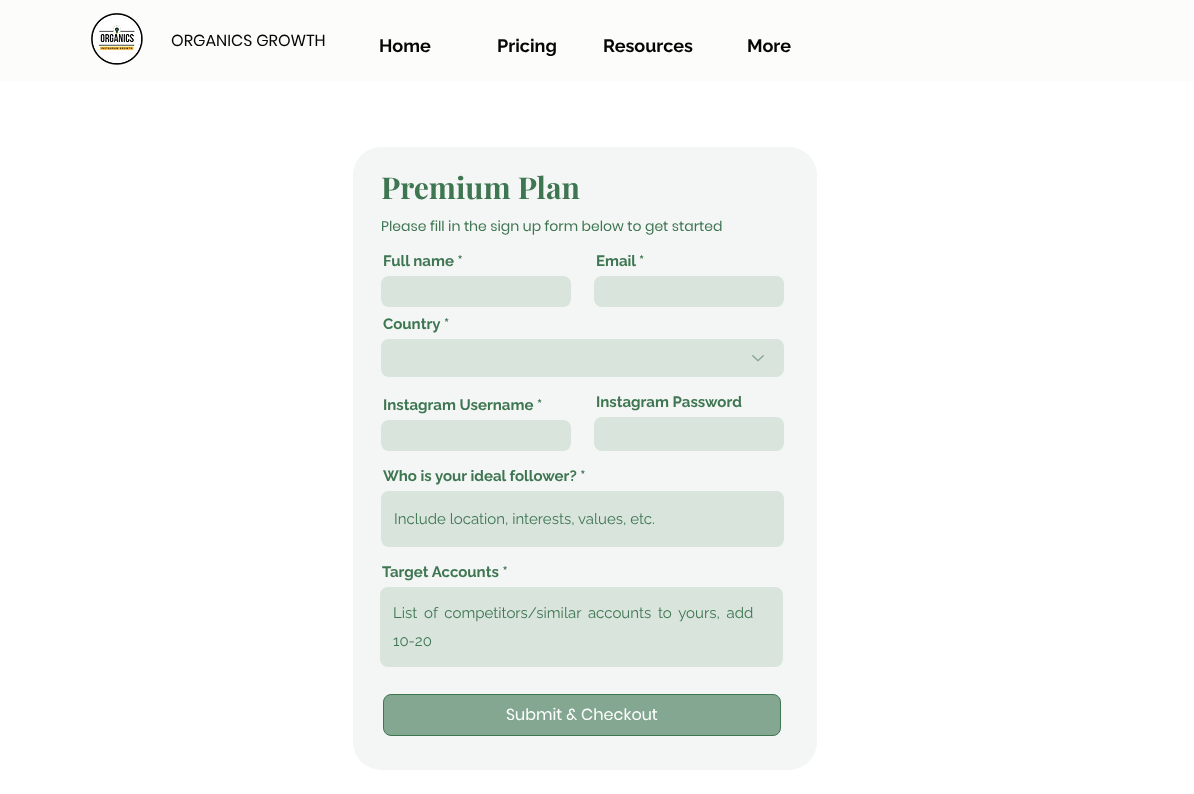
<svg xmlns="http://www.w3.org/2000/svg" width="1194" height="794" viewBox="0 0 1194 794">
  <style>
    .t1 { font: 16px Poppins; fill: #060606; }
    .t2 { font: bold 18px Raleway; fill: #060606; }
    .t3 { font: bold 30px Playfair Display; fill: #3f7652; }
    .t4 { font: 14px Poppins; fill: #3f7652; }
    .t5 { font: bold 15px Raleway; fill: #3f7652; }
    .t6 { font: 15px Raleway; fill: #3f7652; }
    .t7 { font: 16px Poppins; fill: #fff; }
  </style>
  <rect width="100%" height="100%" fill="#fff"/>
  <rect x="0" y="0" width="1194" height="81" fill="#fcfcfb"/>
  <image x="91" y="13" width="52" height="52" href="images/1.png"/>
  <text x="171" y="46" class="t1">ORGANICS GROWTH</text>
  <text x="379" y="52" class="t2">Home</text>
  <text x="497" y="52" class="t2">Pricing</text>
  <text x="603" y="52" class="t2">Resources</text>
  <text x="747" y="52" class="t2">More</text>
  <rect x="353" y="147" width="464" height="623" rx="28" fill="#f3f6f4"/>
  <text x="381" y="199" class="t3">Premium Plan</text>
  <text x="381" y="231" class="t4">Please fill in the sign up form below to get started</text>
  <text x="383" y="266" class="t5">Full name *</text>
  <rect x="381" y="276" width="190" height="31" rx="8" fill="#d8e4dc"/>
  <text x="596" y="266" class="t5">Email</text>
  <text x="639" y="266" class="t5">*</text>
  <rect x="594" y="276" width="190" height="31" rx="8" fill="#d8e4dc"/>
  <text x="383" y="329" class="t5">Country</text>
  <text x="444" y="329" class="t5">*</text>
  <rect x="381" y="339" width="403" height="38" rx="8" fill="#d8e4dc"/>
  <image x="752" y="355" width="12" height="7" href="images/2.png"/>
  <text x="383" y="410" class="t5">Instagram Username *</text>
  <rect x="381" y="420" width="190" height="31" rx="8" fill="#d8e4dc"/>
  <text x="596" y="407" class="t5">Instagram Password</text>
  <rect x="594" y="417" width="190" height="34" rx="8" fill="#d8e4dc"/>
  <text x="383" y="481" class="t5">Who is your ideal follower? *</text>
  <rect x="381" y="491" width="403" height="56" rx="8" fill="#d8e4dc"/>
  <text x="394" y="524" class="t6">Include location, interests, values, etc.</text>
  <text x="382" y="577" class="t5">Target Accounts *</text>
  <rect x="380" y="587" width="403" height="80" rx="8" fill="#d8e4dc"/>
  <text x="393" y="618" word-spacing="3" class="t6">List of competitors/similar accounts to yours, add</text>
  <text x="393" y="646" class="t6">10-20</text>
  <rect x="383.5" y="694.5" width="397" height="41" rx="7.5" fill="#83a790" stroke="#3f7652"/>
  <text x="506" y="720" class="t7">Submit &amp; Checkout</text>
</svg>
